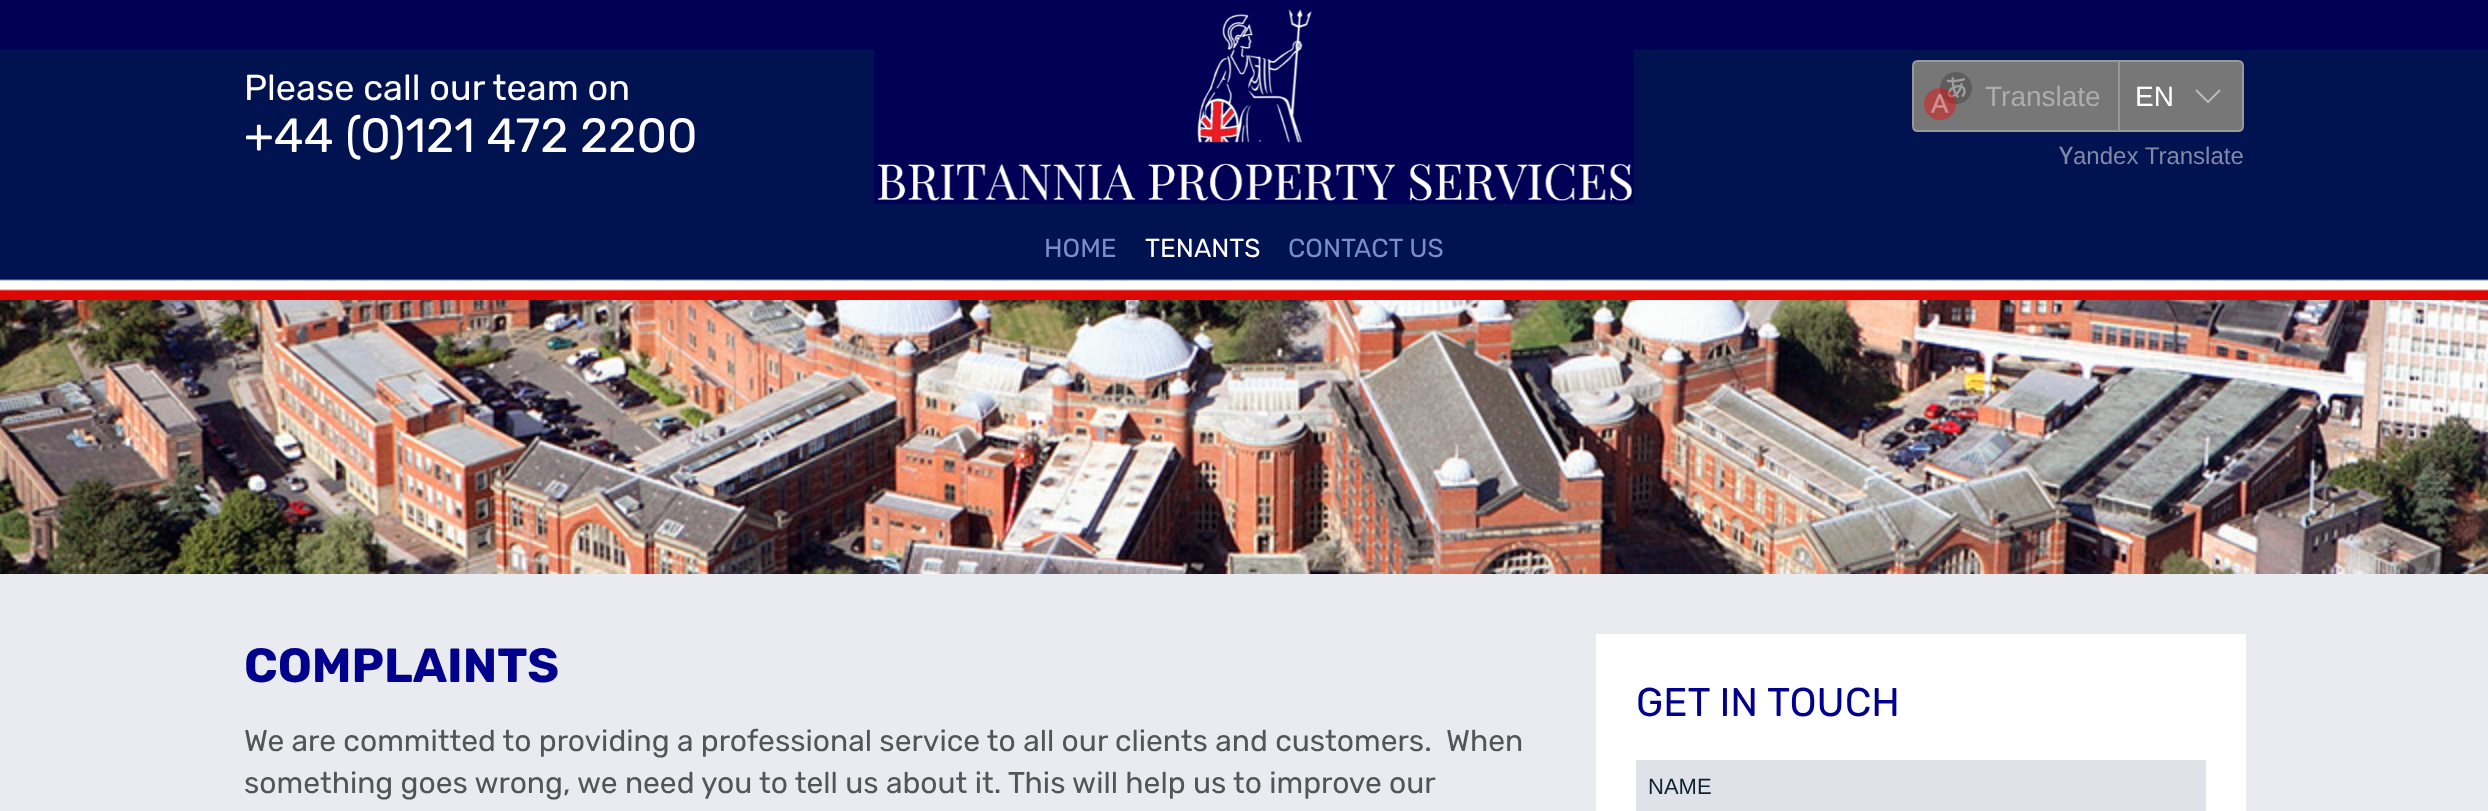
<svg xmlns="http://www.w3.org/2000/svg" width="2488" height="811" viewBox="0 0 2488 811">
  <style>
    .t1 { font: 36px Rubik; fill: #fff; }
    .t2 { font: 48px Rubik; fill: #fff; }
    .t3 { font: 28px Liberation Sans; fill: #adadad; }
    .t4 { font: 28px Liberation Sans; fill: #fff; }
    .t5 { font: 500 24px Noto Sans; fill: #8089a7; }
    .t6 { font: 24px Liberation Sans; fill: #8089a7; }
    .t7 { font: 26px Rubik; fill: #788dcd; }
    .t8 { font: 26px Rubik; fill: #fff; }
    .t9 { font: bold 48px Rubik; fill: #00008c; }
    .t10 { font: 30px Rubik; fill: #545454; }
    .t11 { font: 40px Rubik; fill: #00008c; }
    .t12 { font: 22px Liberation Sans; fill: #0f222c; }
  </style>
  <rect width="100%" height="100%" fill="#e9ebf0"/>
  <image x="0" y="300" width="2488" height="274" href="images/1.png"/>
  <rect x="0" y="0" width="2488" height="281" fill="#005"/>
  <image x="0" y="50" width="2488" height="250" href="images/2.png"/>
  <text x="244" y="100" class="t1">Please call our team on</text>
  <text x="244" y="152" class="t2">+44 (0)121 472 2200</text>
  <image x="874" y="9" width="760" height="195" href="images/3.png"/>
  <path d="M1918 61H2119V131H1918C1915 131 1913 129 1913 126V66C1913 63 1915 61 1918 61Z" fill="#777" stroke="#999" stroke-width="2"/>
  <image x="1924" y="72" width="48" height="48" href="images/4.png"/>
  <text x="1985" y="106" class="t3">Translate</text>
  <path d="M2119 61H2238C2241 61 2243 63 2243 66V126C2243 129 2241 131 2238 131H2119Z" fill="#777" stroke="#999" stroke-width="2"/>
  <text x="2135" y="106" class="t4">EN</text>
  <image x="2195" y="89" width="26" height="15" href="images/5.png"/>
  <text x="2059" y="164" class="t5">Y</text>
  <text x="2073" y="164" class="t6">andex Translate</text>
  <text x="1044" y="257" class="t7">HOME</text>
  <text x="1145" y="257" class="t8">TENANTS</text>
  <text x="1288" y="257" class="t7">CONTACT US</text>
  <text x="244" y="682" class="t9">COMPLAINTS</text>
  <text x="244" y="751" class="t10" xml:space="preserve">We are committed to providing a professional service to all our clients and customers.  When</text>
  <text x="244" y="793" class="t10">something goes wrong, we need you to tell us about it. This will help us to improve our</text>
  <rect x="1596" y="634" width="650" height="177" fill="#fff"/>
  <text x="1636" y="716" class="t11">GET IN TOUCH</text>
  <rect x="1636" y="760" width="570" height="51" fill="#e0e2e9"/>
  <text x="1648" y="794" class="t12">NAME</text>
</svg>
